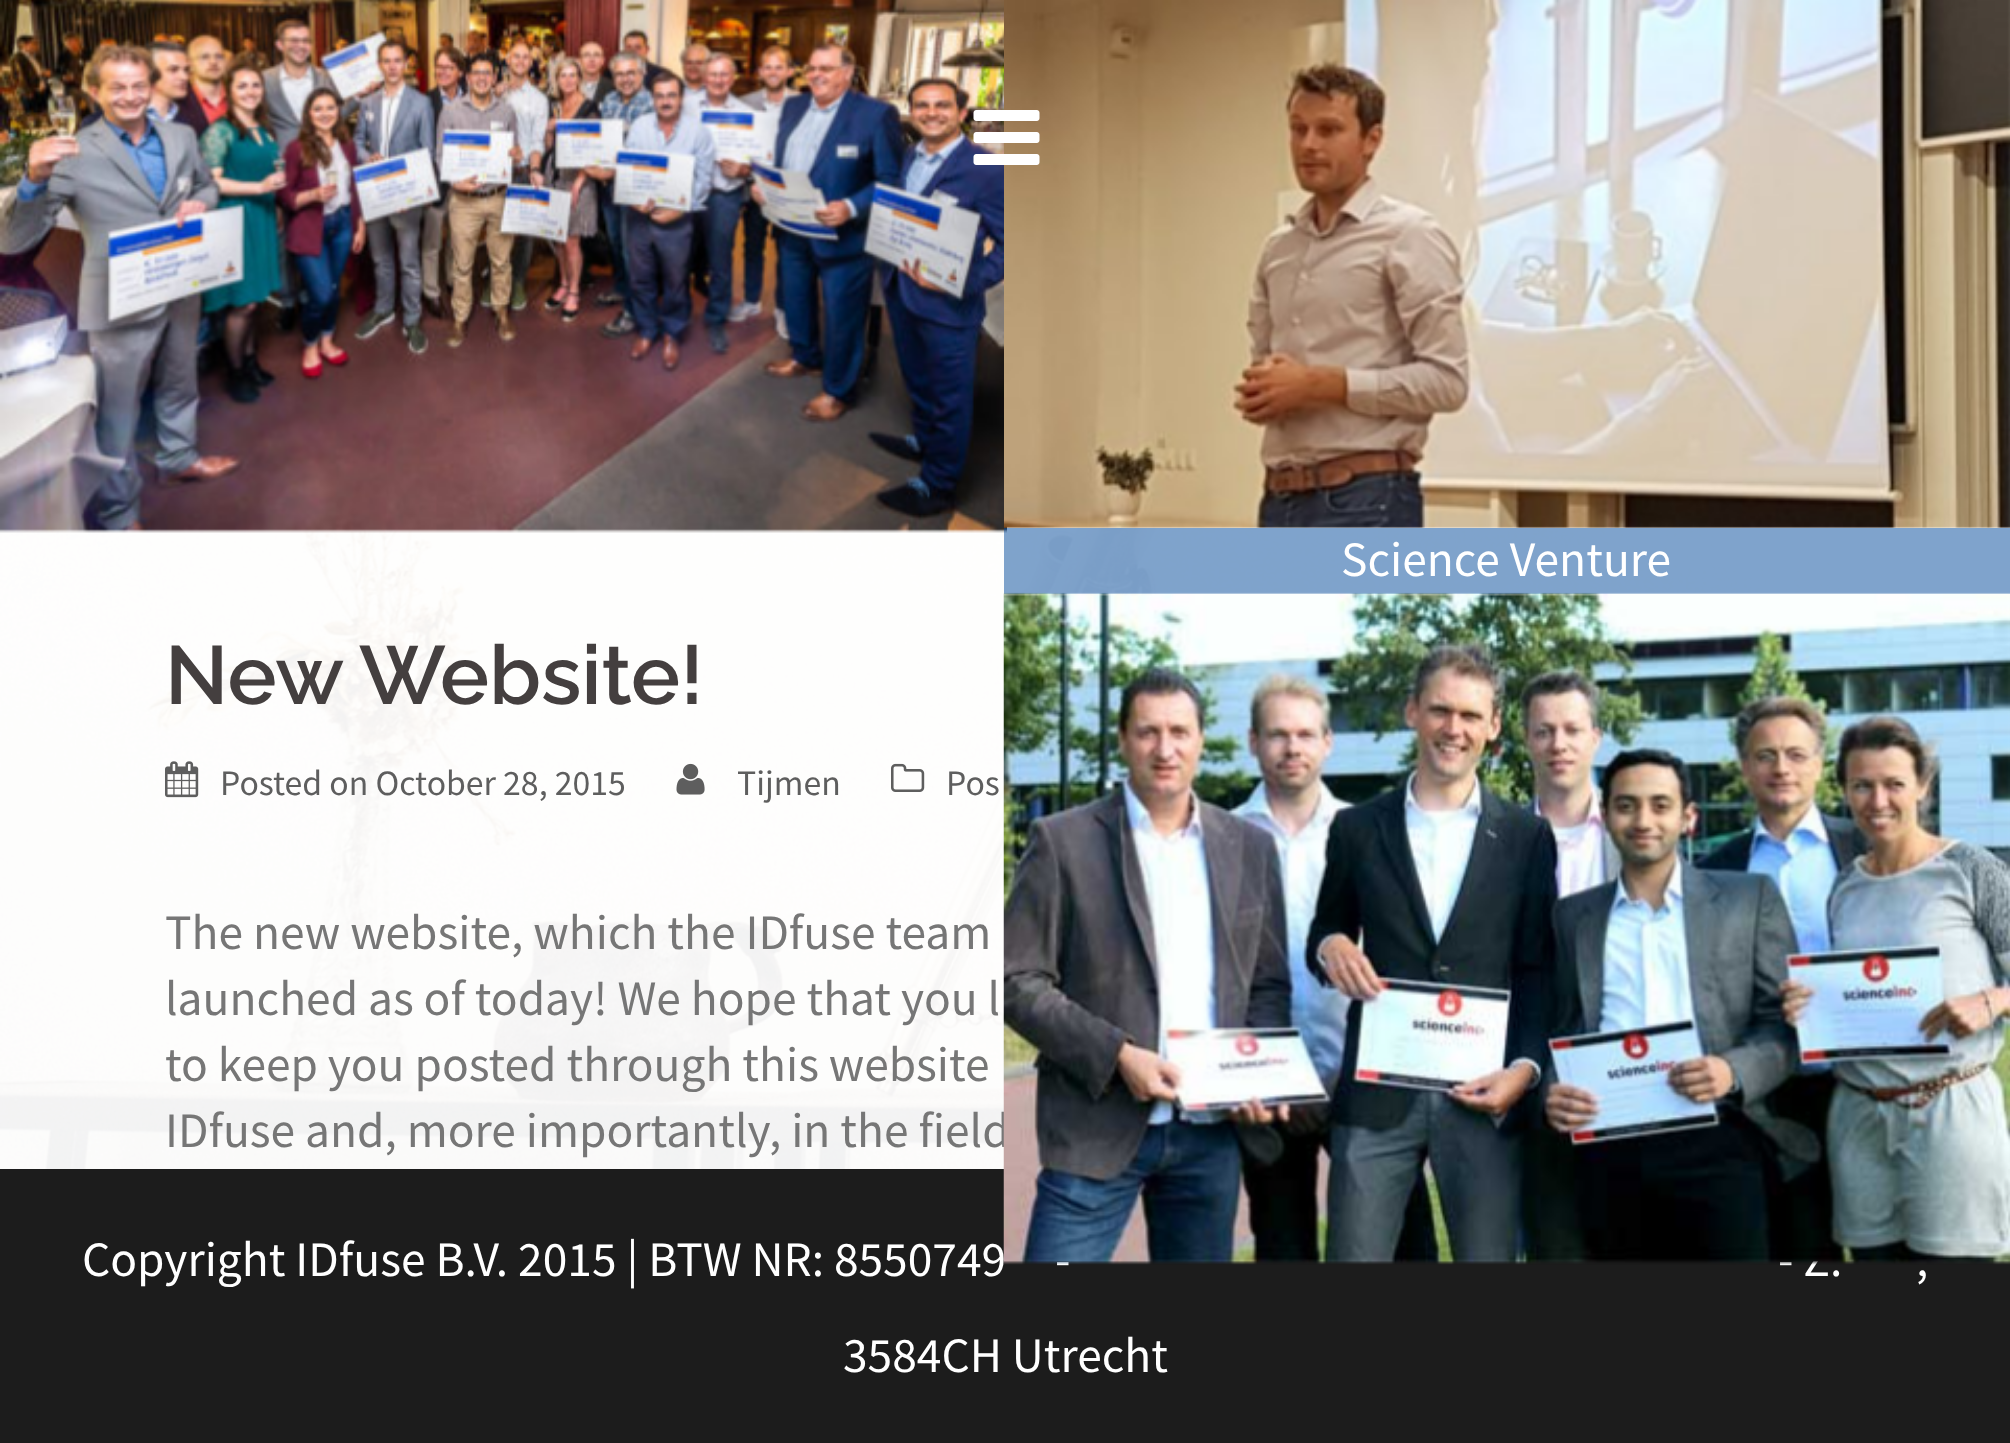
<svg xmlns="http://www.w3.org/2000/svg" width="2010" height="1443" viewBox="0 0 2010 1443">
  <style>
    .t1 { font: 49.5px Source Sans Pro; fill: #fff; }
    .t2 { font: 49.5px Source Sans Pro; fill: #767676; }
    .t3 { font: 600 82.5px Raleway; fill: #443f3f; }
    .t4 { font: 35.75px Source Sans Pro; fill: #5e5e5e; }
  </style>
  <defs>
    <clipPath id="clip1"><rect x="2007" y="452" width="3" height="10"/></clipPath>
  </defs>
  <rect width="100%" height="100%" fill="#fff"/>
  <image x="0" y="0" width="2010" height="1169" href="images/1.png"/>
  <g clip-path="url(#clip1)">
    <rect x="55" y="517" width="1955" height="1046" fill="#000000bf" filter="blur(40px)"/>
  </g>
  <rect x="0" y="462" width="2010" height="707" fill="#fffffff2"/>
  <image x="0" y="0" width="1007" height="533" href="images/3.png"/>
  <image x="1004" y="0" width="1006" height="528" href="images/4.png"/>
  <image x="973" y="110" width="67" height="55" href="images/2.png"/>
  <rect x="1004" y="528" width="1006" height="66" fill="#00489a80"/>
  <text x="1341" y="576" class="t1">Science Venture</text>
  <text x="165" y="1147" class="t2">IDfuse and, more importantly, in the field</text>
  <rect x="0" y="1169" width="2010" height="274" fill="#1c1c1c"/>
  <text x="82" y="1276" class="t1">Copyright IDfuse B.V. 2015 | BTW NR: 8550749</text>
  <text x="1055" y="1276" class="t1">-</text>
  <text x="1778" y="1276" class="t1">- Z.</text>
  <image x="1003" y="592" width="1007" height="673" href="images/5.png"/>
  <text x="165" y="704" class="t3">New Website!</text>
  <image x="165" y="761" width="34" height="37" href="images/6.png"/>
  <text x="220" y="795" class="t4">Posted on October 28, 2015</text>
  <image x="676" y="763" width="29" height="32" href="images/7.png"/>
  <text x="737" y="795" class="t4">Tijmen</text>
  <image x="891" y="763" width="34" height="29" href="images/8.png"/>
  <text x="946" y="795" class="t4">Pos</text>
  <text x="165" y="949" class="t2">The new website, which the IDfuse team</text>
  <text x="165" y="1015" class="t2">launched as of today! We hope that you l</text>
  <text x="165" y="1081" class="t2">to keep you posted through this website</text>
  <text x="1916" y="1276" class="t1">,</text>
  <text x="843" y="1372" class="t1">3584CH Utrecht</text>
</svg>
